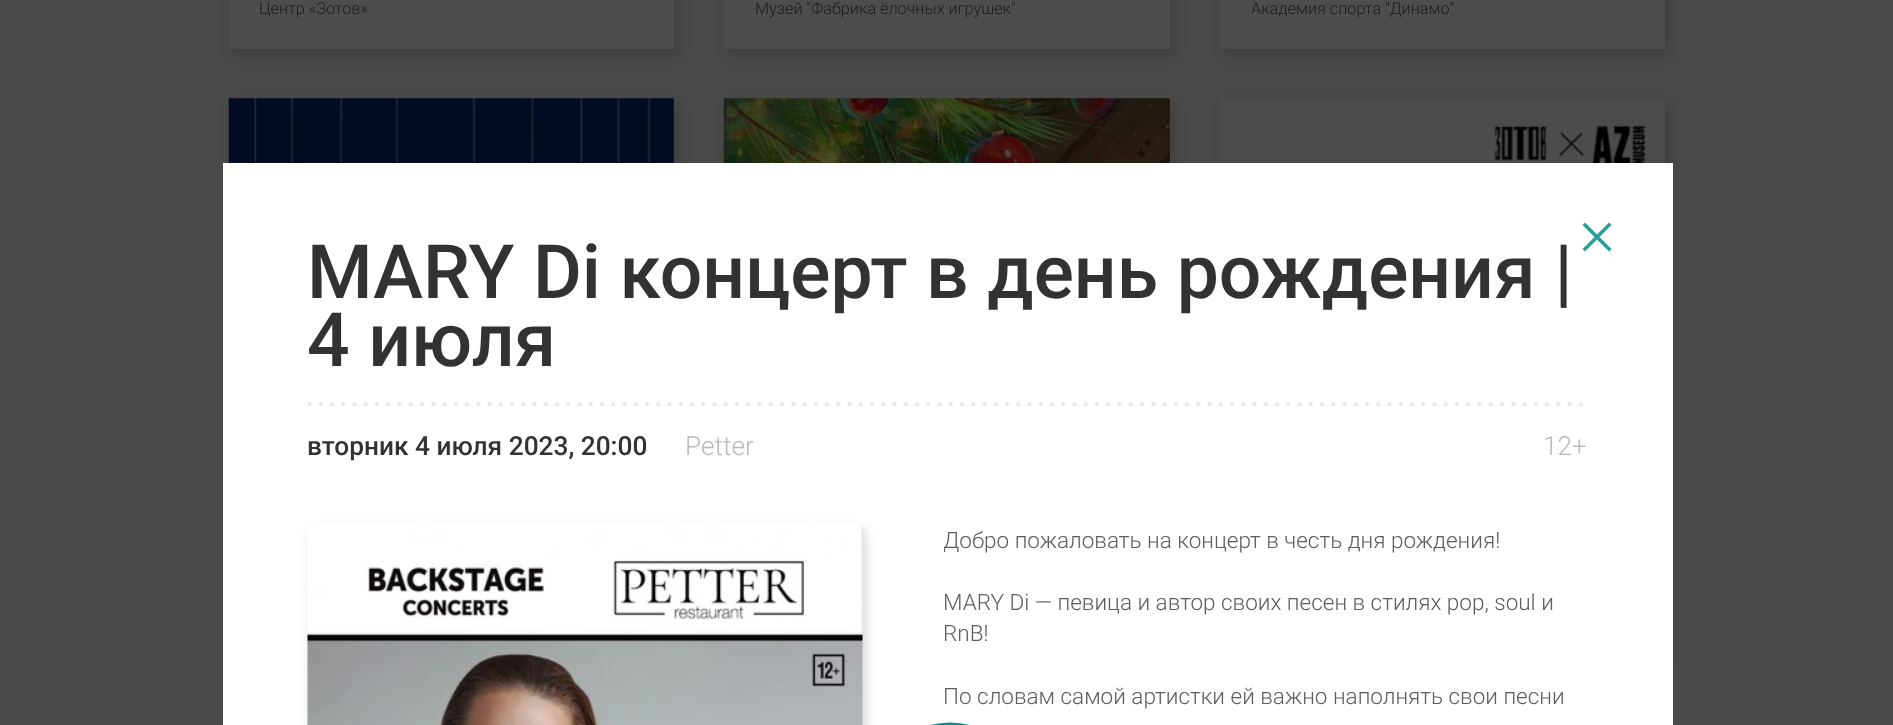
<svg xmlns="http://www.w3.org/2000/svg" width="1893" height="725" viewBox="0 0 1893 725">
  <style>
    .t1 { font: 300 16.25px Roboto; fill: #1c1c1c; }
    .t2 { font: 500 75px Roboto; fill: #333232; }
    .t3 { font: 500 26.25px Roboto; fill: #333232; }
    .t4 { font: 300 26.25px Roboto; fill: #b9b9b9; }
    .t5 { font: 300 22.5px Roboto; fill: #5d5d5d; }
  </style>
  <defs>
    <clipPath id="clip1"><rect x="944" y="524" width="644" height="201"/></clipPath>
  </defs>
  <rect width="100%" height="100%" fill="#494949"/>
  <rect x="233" y="-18" width="445" height="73" fill="#00000026" filter="blur(6px)"/>
  <rect x="229" y="0" width="445" height="49" fill="#4d4d4d"/>
  <text x="259" y="14" class="t1">Центр «Зотов»</text>
  <rect x="728" y="-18" width="446" height="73" fill="#00000026" filter="blur(6px)"/>
  <rect x="724" y="0" width="446" height="49" fill="#4d4d4d"/>
  <text x="755" y="14" class="t1">Музей "Фабрика ёлочных игрушек"</text>
  <rect x="1224" y="-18" width="445" height="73" fill="#00000026" filter="blur(6px)"/>
  <rect x="1220" y="0" width="445" height="49" fill="#4d4d4d"/>
  <text x="1251" y="14" class="t1">Академия спорта "Динамо"</text>
  <rect x="233" y="105" width="445" height="553" fill="#00000026" filter="blur(6px)"/>
  <image x="228" y="98" width="446" height="65" href="images/1.png"/>
  <rect x="728" y="105" width="446" height="553" fill="#00000026" filter="blur(6px)"/>
  <image x="723" y="98" width="447" height="65" href="images/2.png"/>
  <rect x="1224" y="105" width="445" height="553" fill="#00000026" filter="blur(6px)"/>
  <image x="1220" y="98" width="445" height="65" href="images/3.png"/>
  <rect x="223" y="163" width="1450" height="562" fill="#fff"/>
  <path d="M898 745.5C926.5 716.5 973.5 716.5 1002 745.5" fill="none" stroke="#009589" stroke-width="2.5"/>
  <path d="M1582.5 249L1609 222.5L1611.5 225L1585 251.5Z" fill="#279f9b"/>
  <path d="M1585 222.5L1611.5 249L1609 251.5L1582.5 225Z" fill="#279f9b"/>
  <image x="307" y="402" width="1277" height="5" href="images/4.png"/>
  <text x="307" y="298" class="t2">MARY Di концерт в день рождения |</text>
  <text x="307" y="366" class="t2">4 июля</text>
  <text x="307" y="455" class="t3">вторник 4 июля 2023, 20:00</text>
  <text x="685" y="455" class="t4">Petter</text>
  <text x="1543" y="455" class="t4">12+</text>
  <rect x="311" y="530" width="555" height="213" fill="#00000026" filter="blur(6px)"/>
  <image x="307" y="524" width="556" height="201" href="images/5.png"/>
  <g clip-path="url(#clip1)">
    <text x="943" y="548" class="t5">Добро пожаловать на концерт в честь дня рождения!</text>
  </g>
  <text x="943" y="610" class="t5">MARY Di — певица и автор своих песен в стилях pop, soul и</text>
  <text x="943" y="641" class="t5">RnB!</text>
  <text x="943" y="704" class="t5">По словам самой артистки ей важно наполнять свои песни</text>
</svg>
